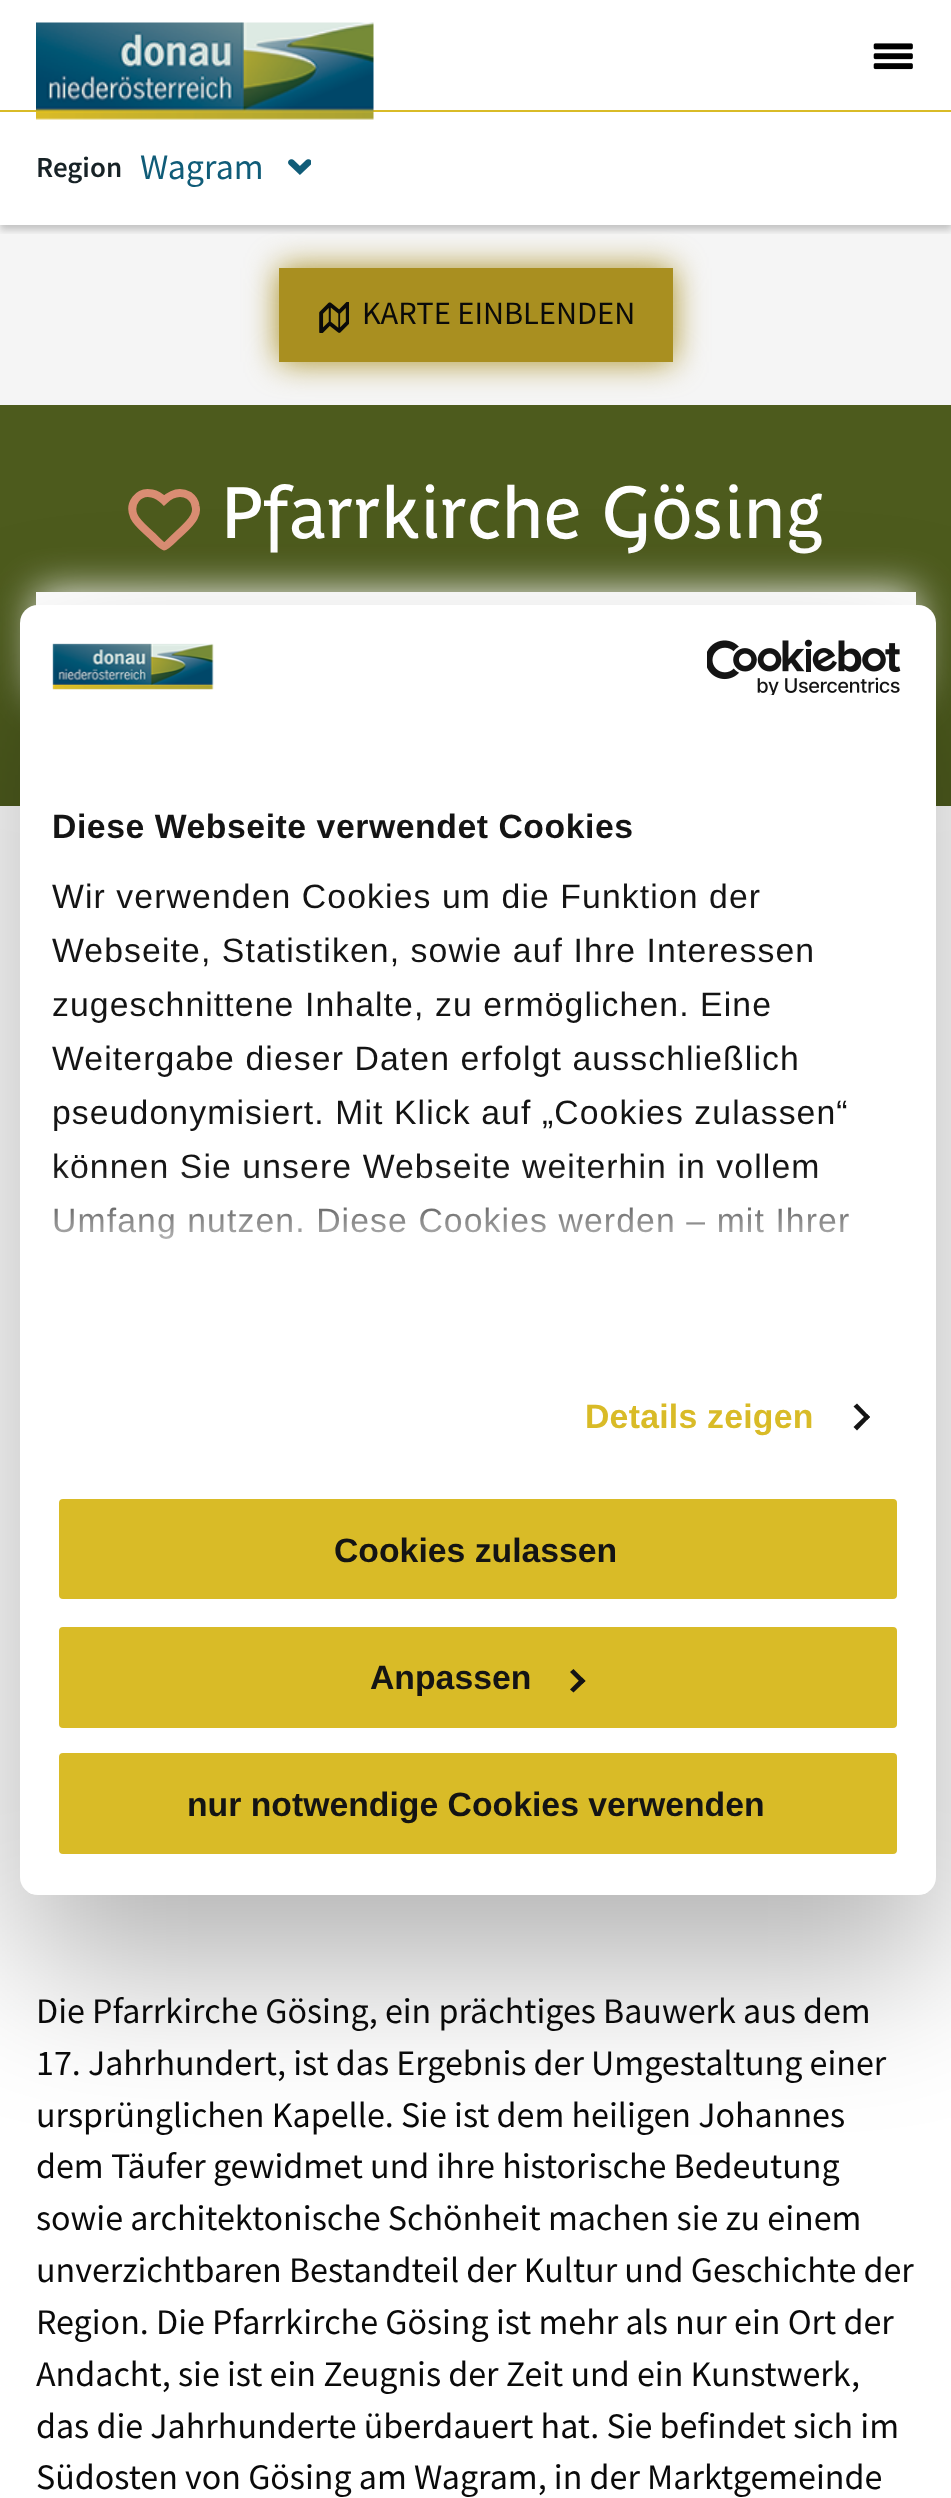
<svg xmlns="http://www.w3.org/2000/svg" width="951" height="2498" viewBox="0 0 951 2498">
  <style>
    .t1 { font: 600 29px Source Sans Pro; fill: #172226; }
    .t2 { font: 36px Source Sans Pro; fill: #105c78; }
    .t3 { font: 32.5px Source Sans Pro; fill: #0a0a0a; }
    .t4 { font: 72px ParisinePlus; fill: #fff; }
    .t5 { font: 36px Source Sans Pro; fill: #0a0a0a; }
    .t6 { font: bold 33.75px Liberation Sans; letter-spacing: 0.55px; fill: #141414; }
    .t7 { font: 33.75px Liberation Sans; letter-spacing: 1.1px; fill: #141414; }
    .t8 { font: bold 33.75px Liberation Sans; letter-spacing: 0.25px; fill: #d9bb27; }
    .t9 { font: bold 33.75px Liberation Sans; fill: #141414; }
  </style>
  <defs>
    <clipPath id="clip1"><rect x="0" y="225" width="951" height="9"/></clipPath>
    <linearGradient id="g1" gradientUnits="userSpaceOnUse" x1="462" y1="1337" x2="462" y2="1168"><stop offset="0" stop-color="#fff"/><stop offset="0.5" stop-color="#fff" stop-opacity="0.8"/><stop offset="1" stop-color="#fff" stop-opacity="0"/></linearGradient>
    <clipPath id="clip2"><rect x="20" y="605" width="916" height="1290" rx="18"/></clipPath>
  </defs>
  <rect width="100%" height="100%" fill="#fff"/>
  <rect x="0" y="225" width="951" height="180" fill="#f5f5f5"/>
  <g clip-path="url(#clip1)">
    <rect x="0" y="5" width="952" height="225" fill="#00000033" filter="blur(3.5px)"/>
  </g>
  <rect x="0" y="110" width="951" height="2" fill="#d9bb27"/>
  <image x="36" y="22" width="338" height="98" href="images/1.png"/>
  <image x="873" y="43" width="40" height="27" href="images/2.png"/>
  <text x="36" y="177" class="t1">Region</text>
  <text x="140" y="179" class="t2">Wagram</text>
  <image x="288" y="159" width="23" height="16" href="images/3.png"/>
  <rect x="0" y="405" width="951" height="401" fill="#4d5b1d"/>
  <rect x="279" y="268" width="394" height="94" fill="#a98f20" filter="blur(16px)"/>
  <rect x="279" y="268" width="394" height="94" fill="#a98f20"/>
  <image x="319" y="302" width="30" height="31" href="images/4.png"/>
  <text x="362" y="324" class="t3">KARTE EINBLENDEN</text>
  <rect x="36" y="592" width="880" height="103" fill="#fff" filter="blur(20px)"/>
  <path d="M164 546.5C162 546.5 153.5 537 151.5 535.5C146 530 137.5 524 134 516.5C128.5 504 138 490.5 152 493.5C157 494.5 161 497.5 164 500.5C171 494 180 490.5 189 495.5C192.5 498 195 501.5 195.5 506C196.5 509.5 196 513.5 194 517C190 524.5 182.5 530 177 535.5C175 537 166.5 546.5 164 546.5Z" fill="none" stroke="#da8d73" stroke-width="8"/>
  <text x="221" y="538" class="t4">Pfarrkirche Gösing</text>
  <rect x="36" y="592" width="880" height="14" fill="#fff"/>
  <text x="36" y="2023" class="t5">Die Pfarrkirche Gösing, ein prächtiges Bauwerk aus dem</text>
  <text x="36" y="2075" class="t5">17. Jahrhundert, ist das Ergebnis der Umgestaltung einer</text>
  <text x="36" y="2127" class="t5">ursprünglichen Kapelle. Sie ist dem heiligen Johannes</text>
  <text x="36" y="2178" class="t5">dem Täufer gewidmet und ihre historische Bedeutung</text>
  <text x="36" y="2230" class="t5">sowie architektonische Schönheit machen sie zu einem</text>
  <text x="36" y="2282" class="t5">unverzichtbaren Bestandteil der Kultur und Geschichte der</text>
  <text x="36" y="2334" class="t5">Region. Die Pfarrkirche Gösing ist mehr als nur ein Ort der</text>
  <text x="36" y="2386" class="t5">Andacht, sie ist ein Zeugnis der Zeit und ein Kunstwerk,</text>
  <text x="36" y="2438" class="t5">das die Jahrhunderte überdauert hat. Sie befindet sich im</text>
  <text x="36" y="2489" class="t5">Südosten von Gösing am Wagram, in der Marktgemeinde</text>
  <rect x="20" y="677" width="916" height="1290" rx="18" fill="#0000004d" filter="blur(76.5px)"/>
  <rect x="20" y="605" width="916" height="1290" rx="18" fill="#fff"/>
  <image x="52" y="643" width="162" height="47" href="images/5.png"/>
  <image x="707" y="639" width="194" height="56" href="images/6.png"/>
  <text x="52" y="838" class="t6">Diese Webseite verwendet Cookies</text>
  <text x="52" y="908" class="t7">Wir verwenden Cookies um die Funktion der</text>
  <text x="52" y="962" class="t7">Webseite, Statistiken, sowie auf Ihre Interessen</text>
  <text x="52" y="1016" class="t7">zugeschnittene Inhalte, zu ermöglichen. Eine</text>
  <text x="52" y="1070" class="t7">Weitergabe dieser Daten erfolgt ausschließlich</text>
  <text x="52" y="1124" class="t7">pseudonymisiert. Mit Klick auf „Cookies zulassen“</text>
  <text x="52" y="1178" class="t7">können Sie unsere Webseite weiterhin in vollem</text>
  <text x="52" y="1232" class="t7">Umfang nutzen. Diese Cookies werden – mit Ihrer</text>
  <rect x="54" y="1170" width="796" height="69" fill="url(#g1)"/>
  <text x="585" y="1428" class="t8">Details zeigen</text>
  <path d="M857 1403.5L870 1417L867 1420L853.5 1406.5Z" fill="#141414"/>
  <path d="M867 1414L870 1417L857 1430.5L853.5 1427Z" fill="#141414"/>
  <g clip-path="url(#clip2)">
    <rect x="20" y="1892" width="916" height="2" fill="#fff"/>
  </g>
  <rect x="56.5" y="1496.5" width="843" height="105" rx="6.5" fill="#d9bb27" stroke="#fff" stroke-width="5"/>
  <text x="334" y="1562" class="t9">Cookies zulassen</text>
  <rect x="56.5" y="1624.5" width="843" height="106" rx="6.5" fill="#d9bb27" stroke="#fff" stroke-width="5"/>
  <text x="370" y="1689" class="t9">Anpassen</text>
  <path d="M573.5 1669L585.5 1681L582 1684L570 1672Z" fill="#141414"/>
  <path d="M582 1677.5L585.5 1681L573.5 1692.5L570 1689.5Z" fill="#141414"/>
  <rect x="56.5" y="1750.5" width="843" height="106" rx="6.5" fill="#d9bb27" stroke="#fff" stroke-width="5"/>
  <text x="187" y="1816" class="t9">nur notwendige Cookies verwenden</text>
</svg>
